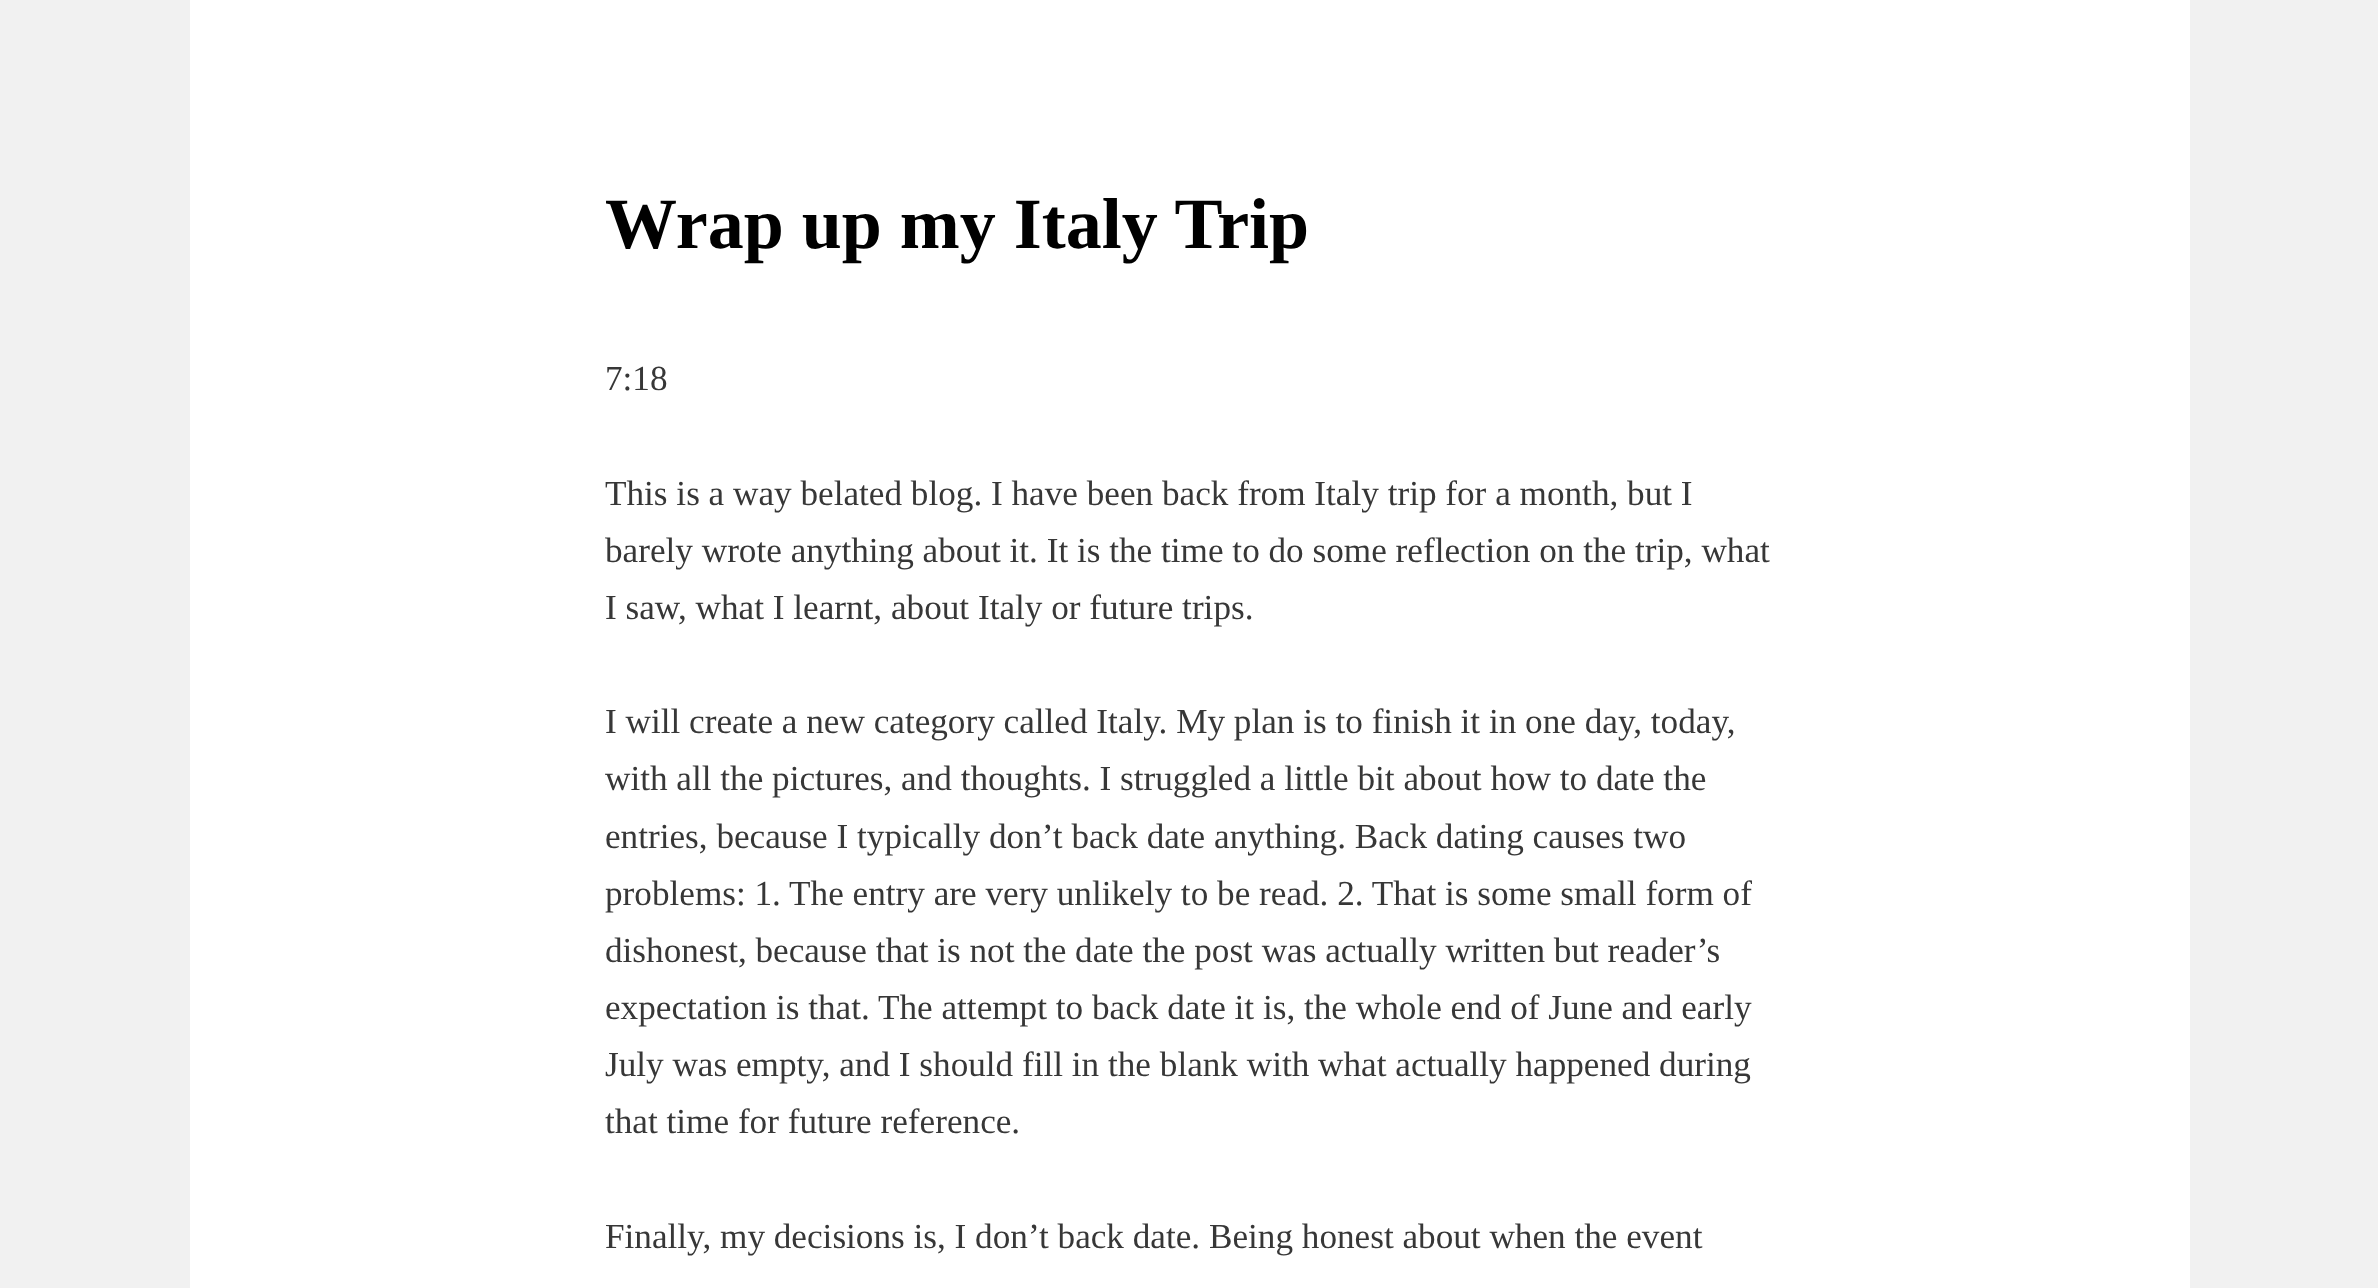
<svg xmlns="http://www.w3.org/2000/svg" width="2378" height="1288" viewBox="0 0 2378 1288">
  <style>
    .t1 { font: bold 72px Liberation Serif; fill: #000; }
    .t2 { font: 35.2px Liberation Serif; fill: #373737; }
  </style>
  <rect width="100%" height="100%" fill="#f1f1f1"/>
  <rect x="190" y="0" width="2000" height="1288" fill="#fff"/>
  <text x="605" y="248" class="t1">Wrap up my Italy Trip</text>
  <text x="605" y="390" class="t2">7:18</text>
  <text x="605" y="505" class="t2">This is a way belated blog. I have been back from Italy trip for a month, but I</text>
  <text x="605" y="562" class="t2">barely wrote anything about it. It is the time to do some reflection on the trip, what</text>
  <text x="605" y="619" class="t2">I saw, what I learnt, about Italy or future trips.</text>
  <text x="605" y="733" class="t2">I will create a new category called Italy. My plan is to finish it in one day, today,</text>
  <text x="605" y="790" class="t2">with all the pictures, and thoughts. I struggled a little bit about how to date the</text>
  <text x="605" y="848" class="t2">entries, because I typically don’t back date anything. Back dating causes two</text>
  <text x="605" y="905" class="t2">problems: 1. The entry are very unlikely to be read. 2. That is some small form of</text>
  <text x="605" y="962" class="t2">dishonest, because that is not the date the post was actually written but reader’s</text>
  <text x="605" y="1019" class="t2">expectation is that. The attempt to back date it is, the whole end of June and early</text>
  <text x="605" y="1076" class="t2">July was empty, and I should fill in the blank with what actually happened during</text>
  <text x="605" y="1133" class="t2">that time for future reference.</text>
  <text x="605" y="1248" class="t2">Finally, my decisions is, I don’t back date. Being honest about when the event</text>
</svg>
